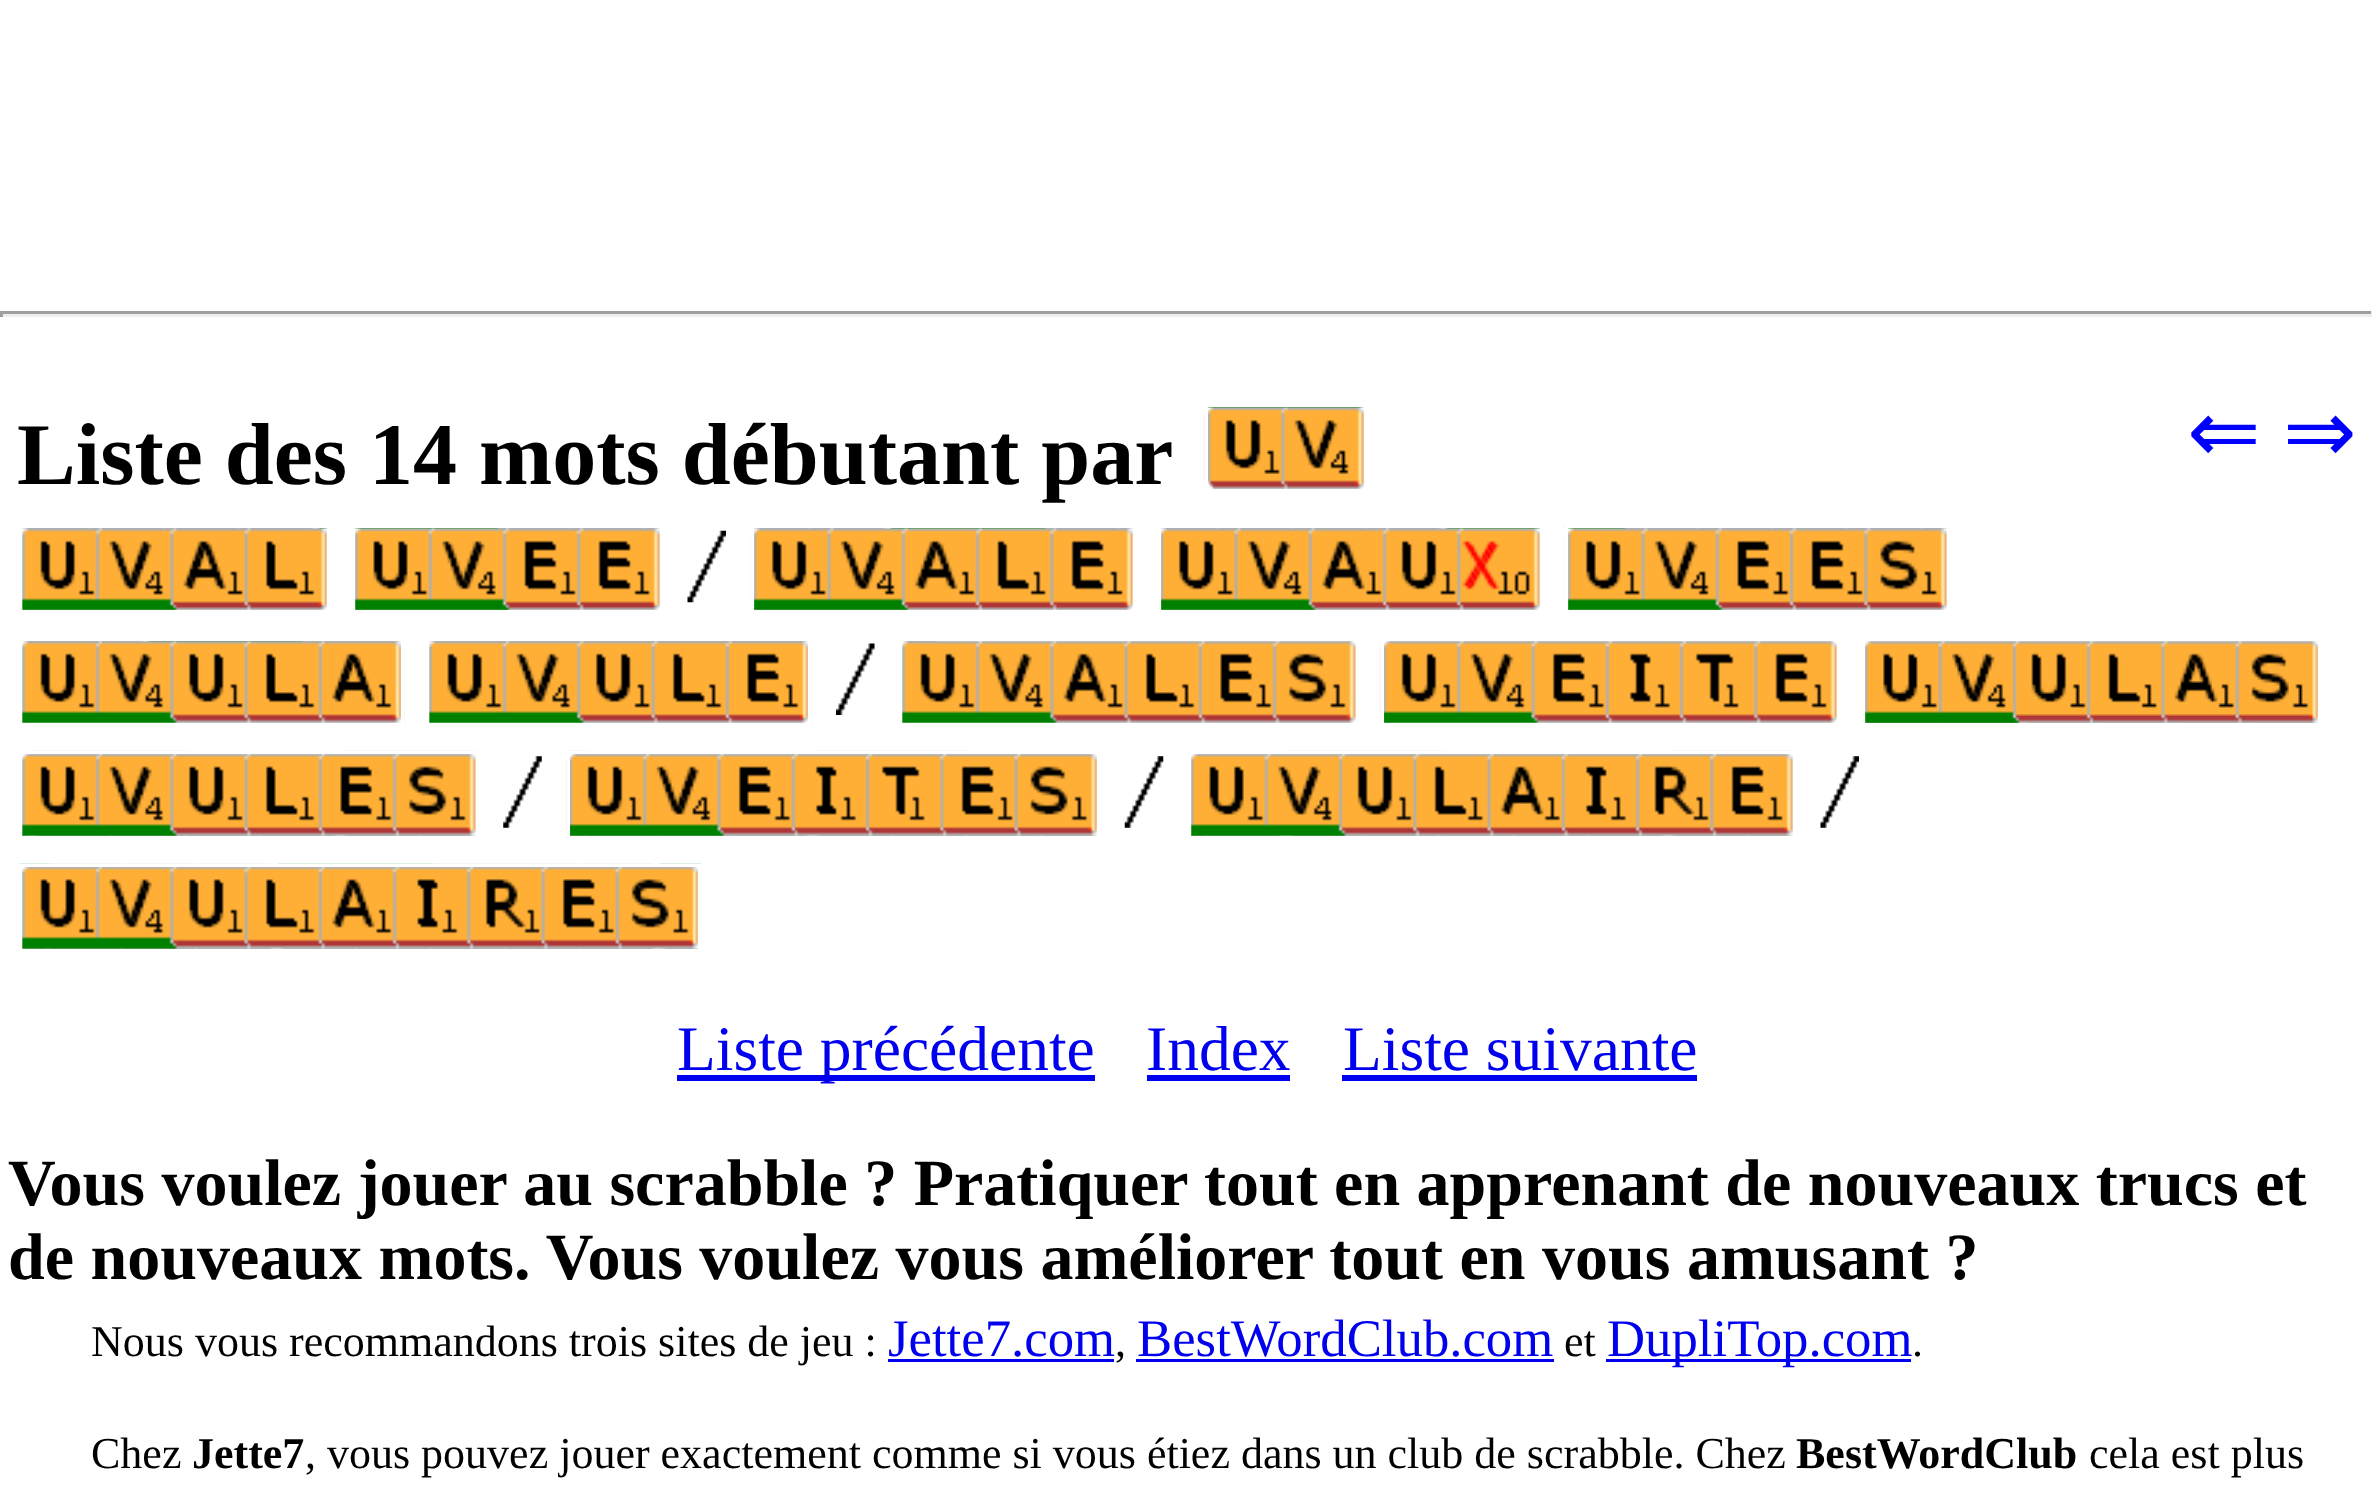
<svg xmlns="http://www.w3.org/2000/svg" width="2372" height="1489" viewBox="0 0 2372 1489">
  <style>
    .t1 { font: bold 88px Liberation Serif; fill: #000; }
    .t2 { font: 88px DejaVu Sans; fill: #00f; }
    .t3 { font: 63.5px Liberation Serif; fill: #00e; }
    .t4 { font: bold 66px Liberation Serif; fill: #000; }
    .t5 { font: 44px Liberation Serif; fill: #000; }
    .t6 { font: 52.75px Liberation Serif; fill: #00e; }
    .t7 { font: bold 44px Liberation Serif; fill: #000; }
  </style>
  <rect width="100%" height="100%" fill="#fff"/>
  <rect x="0" y="311" width="2372" height="3" fill="#9f9f9f"/>
  <rect x="2371" y="311" width="1" height="6" fill="#eee"/>
  <rect x="0" y="314" width="2372" height="3" fill="#eee"/>
  <rect x="0" y="311" width="3" height="6" fill="#9f9f9f"/>
  <text x="17" y="484" class="t1">Liste des 14 mots débutant par</text>
  <image x="1204" y="404" width="160" height="88" href="images/1.png"/>
  <rect x="1206.5" y="405.5" width="159" height="85" fill="none" stroke="#fff" stroke-width="3"/>
  <text x="2187" y="462" class="t2">⇐</text>
  <text x="2283" y="462" class="t2">⇒</text>
  <image x="22" y="528" width="305" height="82" href="images/2.png"/>
  <image x="355" y="528" width="305" height="82" href="images/3.png"/>
  <image x="687" y="530" width="39" height="73" href="images/4.png"/>
  <image x="750" y="525" width="383" height="88" href="images/5.png"/>
  <rect x="752.5" y="526.5" width="382" height="85" fill="none" stroke="#fff" stroke-width="3"/>
  <image x="1157" y="525" width="383" height="88" href="images/6.png"/>
  <rect x="1159.5" y="526.5" width="382" height="85" fill="none" stroke="#fff" stroke-width="3"/>
  <image x="1564" y="525" width="383" height="88" href="images/7.png"/>
  <rect x="1566.5" y="526.5" width="382" height="85" fill="none" stroke="#fff" stroke-width="3"/>
  <image x="22" y="638" width="383" height="88" href="images/8.png"/>
  <rect x="20.5" y="639.5" width="382" height="85" fill="none" stroke="#fff" stroke-width="3"/>
  <image x="429" y="638" width="383" height="88" href="images/9.png"/>
  <rect x="427.5" y="639.5" width="382" height="85" fill="none" stroke="#fff" stroke-width="3"/>
  <image x="836" y="643" width="39" height="72" href="images/10.png"/>
  <image x="902" y="641" width="454" height="82" href="images/11.png"/>
  <image x="1380" y="640" width="457" height="85" href="images/12.png"/>
  <rect x="1382.5" y="639.5" width="456" height="85" fill="none" stroke="#fff" stroke-width="3"/>
  <image x="1865" y="641" width="453" height="82" href="images/13.png"/>
  <image x="19" y="750" width="459" height="86" href="images/14.png"/>
  <rect x="20.5" y="752.5" width="457" height="85" fill="none" stroke="#fff" stroke-width="3"/>
  <image x="503" y="756" width="39" height="72" href="images/15.png"/>
  <image x="566" y="750" width="534" height="89" href="images/16.png"/>
  <rect x="568.5" y="752.5" width="530" height="85" fill="none" stroke="#fff" stroke-width="3"/>
  <image x="1124" y="756" width="40" height="72" href="images/17.png"/>
  <image x="1188" y="750" width="608" height="86" href="images/18.png"/>
  <rect x="1189.5" y="752.5" width="605" height="85" fill="none" stroke="#fff" stroke-width="3"/>
  <image x="1820" y="756" width="39" height="72" href="images/19.png"/>
  <image x="19" y="863" width="683" height="88" href="images/20.png"/>
  <rect x="20.5" y="865.5" width="679" height="85" fill="none" stroke="#fff" stroke-width="3"/>
  <rect x="677" y="1075" width="418" height="6" fill="#00e"/>
  <text x="677" y="1070" class="t3">Liste précédente</text>
  <text x="1146" y="1070" class="t3">Index</text>
  <rect x="1147" y="1075" width="143" height="6" fill="#00e"/>
  <text x="1343" y="1070" class="t3">Liste suivante</text>
  <rect x="1342" y="1075" width="355" height="6" fill="#00e"/>
  <text x="8" y="1205" class="t4">Vous voulez jouer au scrabble ? Pratiquer tout en apprenant de nouveaux trucs et</text>
  <text x="8" y="1279" class="t4">de nouveaux mots. Vous voulez vous améliorer tout en vous amusant ?</text>
  <text x="91" y="1356" class="t5">Nous vous recommandons trois sites de jeu :</text>
  <text x="888" y="1356" class="t6">Jette7.com</text>
  <rect x="888" y="1359" width="226" height="3" fill="#00e"/>
  <text x="1115" y="1356" class="t5">,</text>
  <text x="1137" y="1356" class="t6">BestWordClub.com</text>
  <rect x="1136" y="1359" width="418" height="3" fill="#00e"/>
  <text x="1564" y="1356" class="t5">et</text>
  <rect x="1606" y="1359" width="305" height="3" fill="#00e"/>
  <text x="1607" y="1356" class="t6">DupliTop.com</text>
  <text x="1912" y="1356" class="t5">.</text>
  <text x="91" y="1468" class="t5">Chez</text>
  <text x="192" y="1468" class="t7">Jette7</text>
  <text x="305" y="1468" class="t5">, vous pouvez jouer exactement comme si vous étiez dans un club de scrabble. Chez</text>
  <text x="1796" y="1468" class="t7">BestWordClub</text>
  <text x="2089" y="1468" class="t5">cela est plus</text>
</svg>
